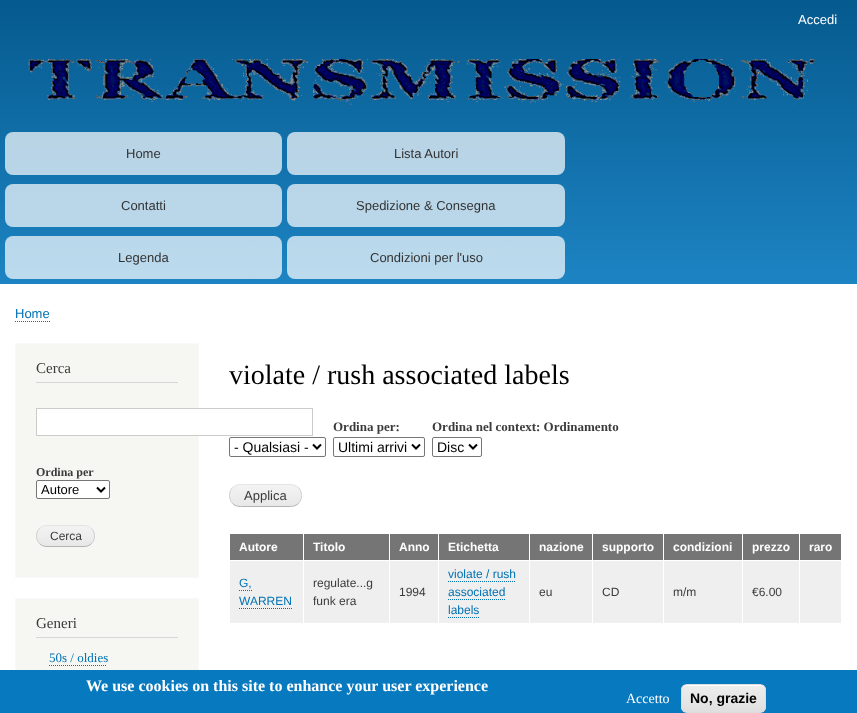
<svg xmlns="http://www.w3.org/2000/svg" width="857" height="713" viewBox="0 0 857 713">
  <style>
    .t1 { font: 13px Liberation Sans; fill: #fffeff; }
    .t2 { font: 13px Liberation Sans; fill: #333; }
    .t3 { font: 13px Liberation Sans; fill: #0071b3; }
    .t4 { font: 15px Liberation Serif; fill: #3b3b3b; }
    .t5 { font: bold 12px Liberation Serif; fill: #3b3b3b; }
    .t6 { font: 13px Liberation Sans; fill: #000; }
    .t7 { font: 12px Liberation Sans; fill: #3b3b3b; }
    .t8 { font: 13px Liberation Serif; fill: #0071b3; }
    .t9 { font: 28px Liberation Serif; fill: #000; }
    .t10 { font: 14px Liberation Sans; fill: #000; }
    .t11 { font: bold 13px Liberation Serif; fill: #3b3b3b; }
    .t12 { font: 13px Liberation Sans; fill: #3b3b3b; }
    .t13 { font: bold 12px Liberation Sans; fill: #fffeff; }
    .t14 { font: 12px Liberation Sans; fill: #0071b3; }
    .t15 { font: bold 16px Liberation Serif; fill: #fffeff; }
    .t16 { font: 14px Liberation Serif; fill: #fffeff; }
    .t17 { font: bold 14px Liberation Sans; fill: #000; }
  </style>
  <defs>
    <linearGradient id="g1" gradientUnits="userSpaceOnUse" x1="429" y1="0" x2="429" y2="284"><stop offset="0" stop-color="#055a8e"/><stop offset="1" stop-color="#1d84c3"/></linearGradient>
    <clipPath id="clip1"><rect x="36" y="525" width="59" height="22" rx="11"/></clipPath>
    <linearGradient id="g2" gradientUnits="userSpaceOnUse" x1="66" y1="526" x2="66" y2="546"><stop offset="0" stop-color="#f3f3f3"/><stop offset="1" stop-color="#e8e8e8"/></linearGradient>
    <clipPath id="clip2"><rect x="229" y="484" width="73" height="23" rx="11.5"/></clipPath>
    <linearGradient id="g3" gradientUnits="userSpaceOnUse" x1="266" y1="485" x2="266" y2="506"><stop offset="0" stop-color="#f3f3f3"/><stop offset="1" stop-color="#e8e8e8"/></linearGradient>
    <clipPath id="clip3"><rect x="681" y="684" width="85" height="29" rx="6"/></clipPath>
    <linearGradient id="g4" gradientUnits="userSpaceOnUse" x1="724" y1="685" x2="724" y2="712"><stop offset="0.05" stop-color="#ededed"/><stop offset="1" stop-color="#dfdfdf"/></linearGradient>
  </defs>
  <rect width="100%" height="100%" fill="#fff"/>
  <rect x="0" y="0" width="857" height="284" fill="url(#g1)"/>
  <text x="798" y="24" class="t1">Accedi</text>
  <image x="28" y="59" width="788" height="46" href="images/1.png"/>
  <rect x="5" y="132" width="277" height="43" rx="8" fill="#ffffffb3"/>
  <text x="126" y="158" class="t2">Home</text>
  <rect x="287" y="132" width="278" height="43" rx="8" fill="#ffffffb3"/>
  <text x="394" y="158" class="t2">Lista Autori</text>
  <rect x="5" y="184" width="277" height="43" rx="8" fill="#ffffffb3"/>
  <text x="121" y="210" class="t2">Contatti</text>
  <rect x="287" y="184" width="278" height="43" rx="8" fill="#ffffffb3"/>
  <text x="356" y="210" class="t2">Spedizione &amp; Consegna</text>
  <rect x="5" y="236" width="277" height="43" rx="8" fill="#ffffffb3"/>
  <text x="118" y="262" class="t2">Legenda</text>
  <rect x="287" y="236" width="278" height="43" rx="8" fill="#ffffffb3"/>
  <text x="370" y="262" class="t2">Condizioni per l'uso</text>
  <text x="15" y="318" class="t3">Home</text>
  <path d="M15 321.5H50" fill="none" stroke="#0071b3" stroke-dasharray="1 1"/>
  <rect x="15.5" y="343.5" width="183" height="234" fill="#f6f6f2" stroke="#f9f9f9"/>
  <rect x="36" y="382" width="142" height="1" fill="#d6d6d6"/>
  <text x="36" y="373" class="t4">Cerca</text>
  <rect x="37" y="409" width="162" height="26" fill="#fff"/>
  <rect x="36.5" y="408.5" width="276" height="27" fill="none" stroke="#ccc"/>
  <text x="36" y="476" class="t5">Ordina per</text>
  <rect x="36.5" y="480.5" width="73" height="18" rx="1.5" fill="#fff" stroke="#767676"/>
  <path d="M97 487.5L101 491.5L105 487.5" fill="none" stroke="#000" stroke-width="2"/>
  <text x="41" y="494" class="t6">Autore</text>
  <g clip-path="url(#clip1)">
    <rect x="36" y="526" width="59" height="20" fill="url(#g2)"/>
  </g>
  <path d="M39.5 528.5C41.5 526.5 44 525.5 47 525.5H84C87 525.5 89.5 526.5 91.5 528.5" fill="none" stroke="#e4e4e4"/>
  <path d="M91.5 528.5C95.5 532.5 95.5 539.5 91.5 543.5" fill="none" stroke="#d2d2d2"/>
  <path d="M91.5 543.5C89.5 545.5 87 546.5 84 546.5H47C44 546.5 41.5 545.5 39.5 543.5" fill="none" stroke="#b4b4b4"/>
  <path d="M39.5 543.5C35.5 539.5 35.5 532.5 39.5 528.5" fill="none" stroke="#d2d2d2"/>
  <text x="50" y="540" class="t7">Cerca</text>
  <rect x="16" y="599" width="182" height="71" fill="#f6f6f2"/>
  <rect x="15.5" y="598.5" width="183" height="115" fill="none" stroke="#f9f9f9"/>
  <rect x="36" y="637" width="142" height="1" fill="#d6d6d6"/>
  <text x="36" y="628" class="t4">Generi</text>
  <text x="49" y="662" class="t8">50s / oldies</text>
  <path d="M49 665.5H107" fill="none" stroke="#0071b3" stroke-dasharray="1 1"/>
  <text x="229" y="384" class="t9">violate / rush associated labels</text>
  <rect x="229.5" y="437.5" width="96" height="19" rx="1.5" fill="none" stroke="#767676"/>
  <path d="M313 444.5L317 448.5L321 444.5" fill="none" stroke="#000" stroke-width="2"/>
  <text x="234" y="452" class="t10">- Qualsiasi -</text>
  <text x="333" y="431" class="t11">Ordina per:</text>
  <rect x="333.5" y="437.5" width="91" height="19" rx="1.5" fill="none" stroke="#767676"/>
  <path d="M412 444.5L416 448.5L420 444.5" fill="none" stroke="#000" stroke-width="2"/>
  <text x="338" y="452" class="t10">Ultimi arrivi</text>
  <text x="432" y="431" class="t11">Ordina nel context: Ordinamento</text>
  <rect x="432.5" y="437.5" width="49" height="19" rx="1.5" fill="none" stroke="#767676"/>
  <path d="M469 444.5L473 448.5L477 444.5" fill="none" stroke="#000" stroke-width="2"/>
  <text x="437" y="452" class="t10">Disc</text>
  <g clip-path="url(#clip2)">
    <rect x="229" y="485" width="73" height="21" fill="url(#g3)"/>
  </g>
  <path d="M232.5 487.5C235 485.5 237.5 484.5 240.5 484.5H290.5C293.5 484.5 296 485.5 298.5 487.5" fill="none" stroke="#e4e4e4"/>
  <path d="M298.5 487.5C302.5 492 302.5 499 298.5 503.5" fill="none" stroke="#d2d2d2"/>
  <path d="M298.5 503.5C296 505.5 293.5 506.5 290.5 506.5H240.5C237.5 506.5 235 505.5 232.5 503.5" fill="none" stroke="#b4b4b4"/>
  <path d="M232.5 503.5C228.5 499 228.5 492 232.5 487.5" fill="none" stroke="#d2d2d2"/>
  <text x="244" y="500" class="t12">Applica</text>
  <rect x="230" y="534" width="73" height="26" fill="#757575"/>
  <text x="239" y="551" class="t13">Autore</text>
  <rect x="304" y="534" width="85" height="26" fill="#757575"/>
  <text x="313" y="551" class="t13">Titolo</text>
  <rect x="390" y="534" width="48" height="26" fill="#757575"/>
  <text x="399" y="551" class="t13">Anno</text>
  <rect x="439" y="534" width="90" height="26" fill="#757575"/>
  <text x="448" y="551" class="t13">Etichetta</text>
  <rect x="530" y="534" width="62" height="26" fill="#757575"/>
  <text x="539" y="551" class="t13">nazione</text>
  <rect x="593" y="534" width="70" height="26" fill="#757575"/>
  <text x="602" y="551" class="t13">supporto</text>
  <rect x="664" y="534" width="78" height="26" fill="#757575"/>
  <text x="673" y="551" class="t13">condizioni</text>
  <rect x="743" y="534" width="56" height="26" fill="#757575"/>
  <text x="752" y="551" class="t13">prezzo</text>
  <rect x="800" y="534" width="41" height="26" fill="#757575"/>
  <text x="809" y="551" class="t13">raro</text>
  <rect x="230" y="561" width="611" height="62" fill="#efefef"/>
  <text x="239" y="587" class="t14">G,</text>
  <path d="M239 590.5H252M239 608.5H292" fill="none" stroke="#0071b3" stroke-dasharray="1 1"/>
  <text x="239" y="605" class="t14">WARREN</text>
  <rect x="303" y="560" width="1" height="64" fill="#fff"/>
  <text x="313" y="587" class="t7">regulate...g</text>
  <text x="313" y="605" class="t7">funk era</text>
  <rect x="389" y="560" width="1" height="64" fill="#fff"/>
  <text x="399" y="596" class="t7">1994</text>
  <rect x="438" y="560" width="1" height="64" fill="#fff"/>
  <text x="448" y="578" class="t14">violate / rush</text>
  <path d="M448 581.5H516" fill="none" stroke="#0071b3" stroke-dasharray="1 1"/>
  <text x="448" y="596" class="t14">associated</text>
  <path d="M448 599.5H505M448 617.5H480" fill="none" stroke="#0071b3" stroke-dasharray="1 1"/>
  <text x="448" y="614" class="t14">labels</text>
  <rect x="529" y="560" width="1" height="64" fill="#fff"/>
  <text x="539" y="596" class="t7">eu</text>
  <rect x="592" y="560" width="1" height="64" fill="#fff"/>
  <text x="602" y="596" class="t7">CD</text>
  <rect x="663" y="560" width="1" height="64" fill="#fff"/>
  <text x="673" y="596" class="t7">m/m</text>
  <rect x="742" y="560" width="1" height="64" fill="#fff"/>
  <text x="752" y="596" class="t7">€6.00</text>
  <rect x="799" y="560" width="1" height="64" fill="#fff"/>
  <rect x="0" y="670" width="857" height="43" fill="#0779bf"/>
  <text x="86" y="691" class="t15">We use cookies on this site to enhance your user experience</text>
  <text x="626" y="703" class="t16">Accetto</text>
  <g clip-path="url(#clip3)">
    <rect x="681" y="685" width="85" height="27" fill="url(#g4)"/>
  </g>
  <path d="M687 686H760C763 686 765 688 765 691C765 682 754 685 748 685H699C693 685 682 682 682 691C682 688 684 686 687 686Z" fill="#fff"/>
  <rect x="681.5" y="684.5" width="84" height="28" rx="5.5" fill="none" stroke="#dcdcdc"/>
  <text x="690" y="703" class="t17">No, grazie</text>
</svg>
